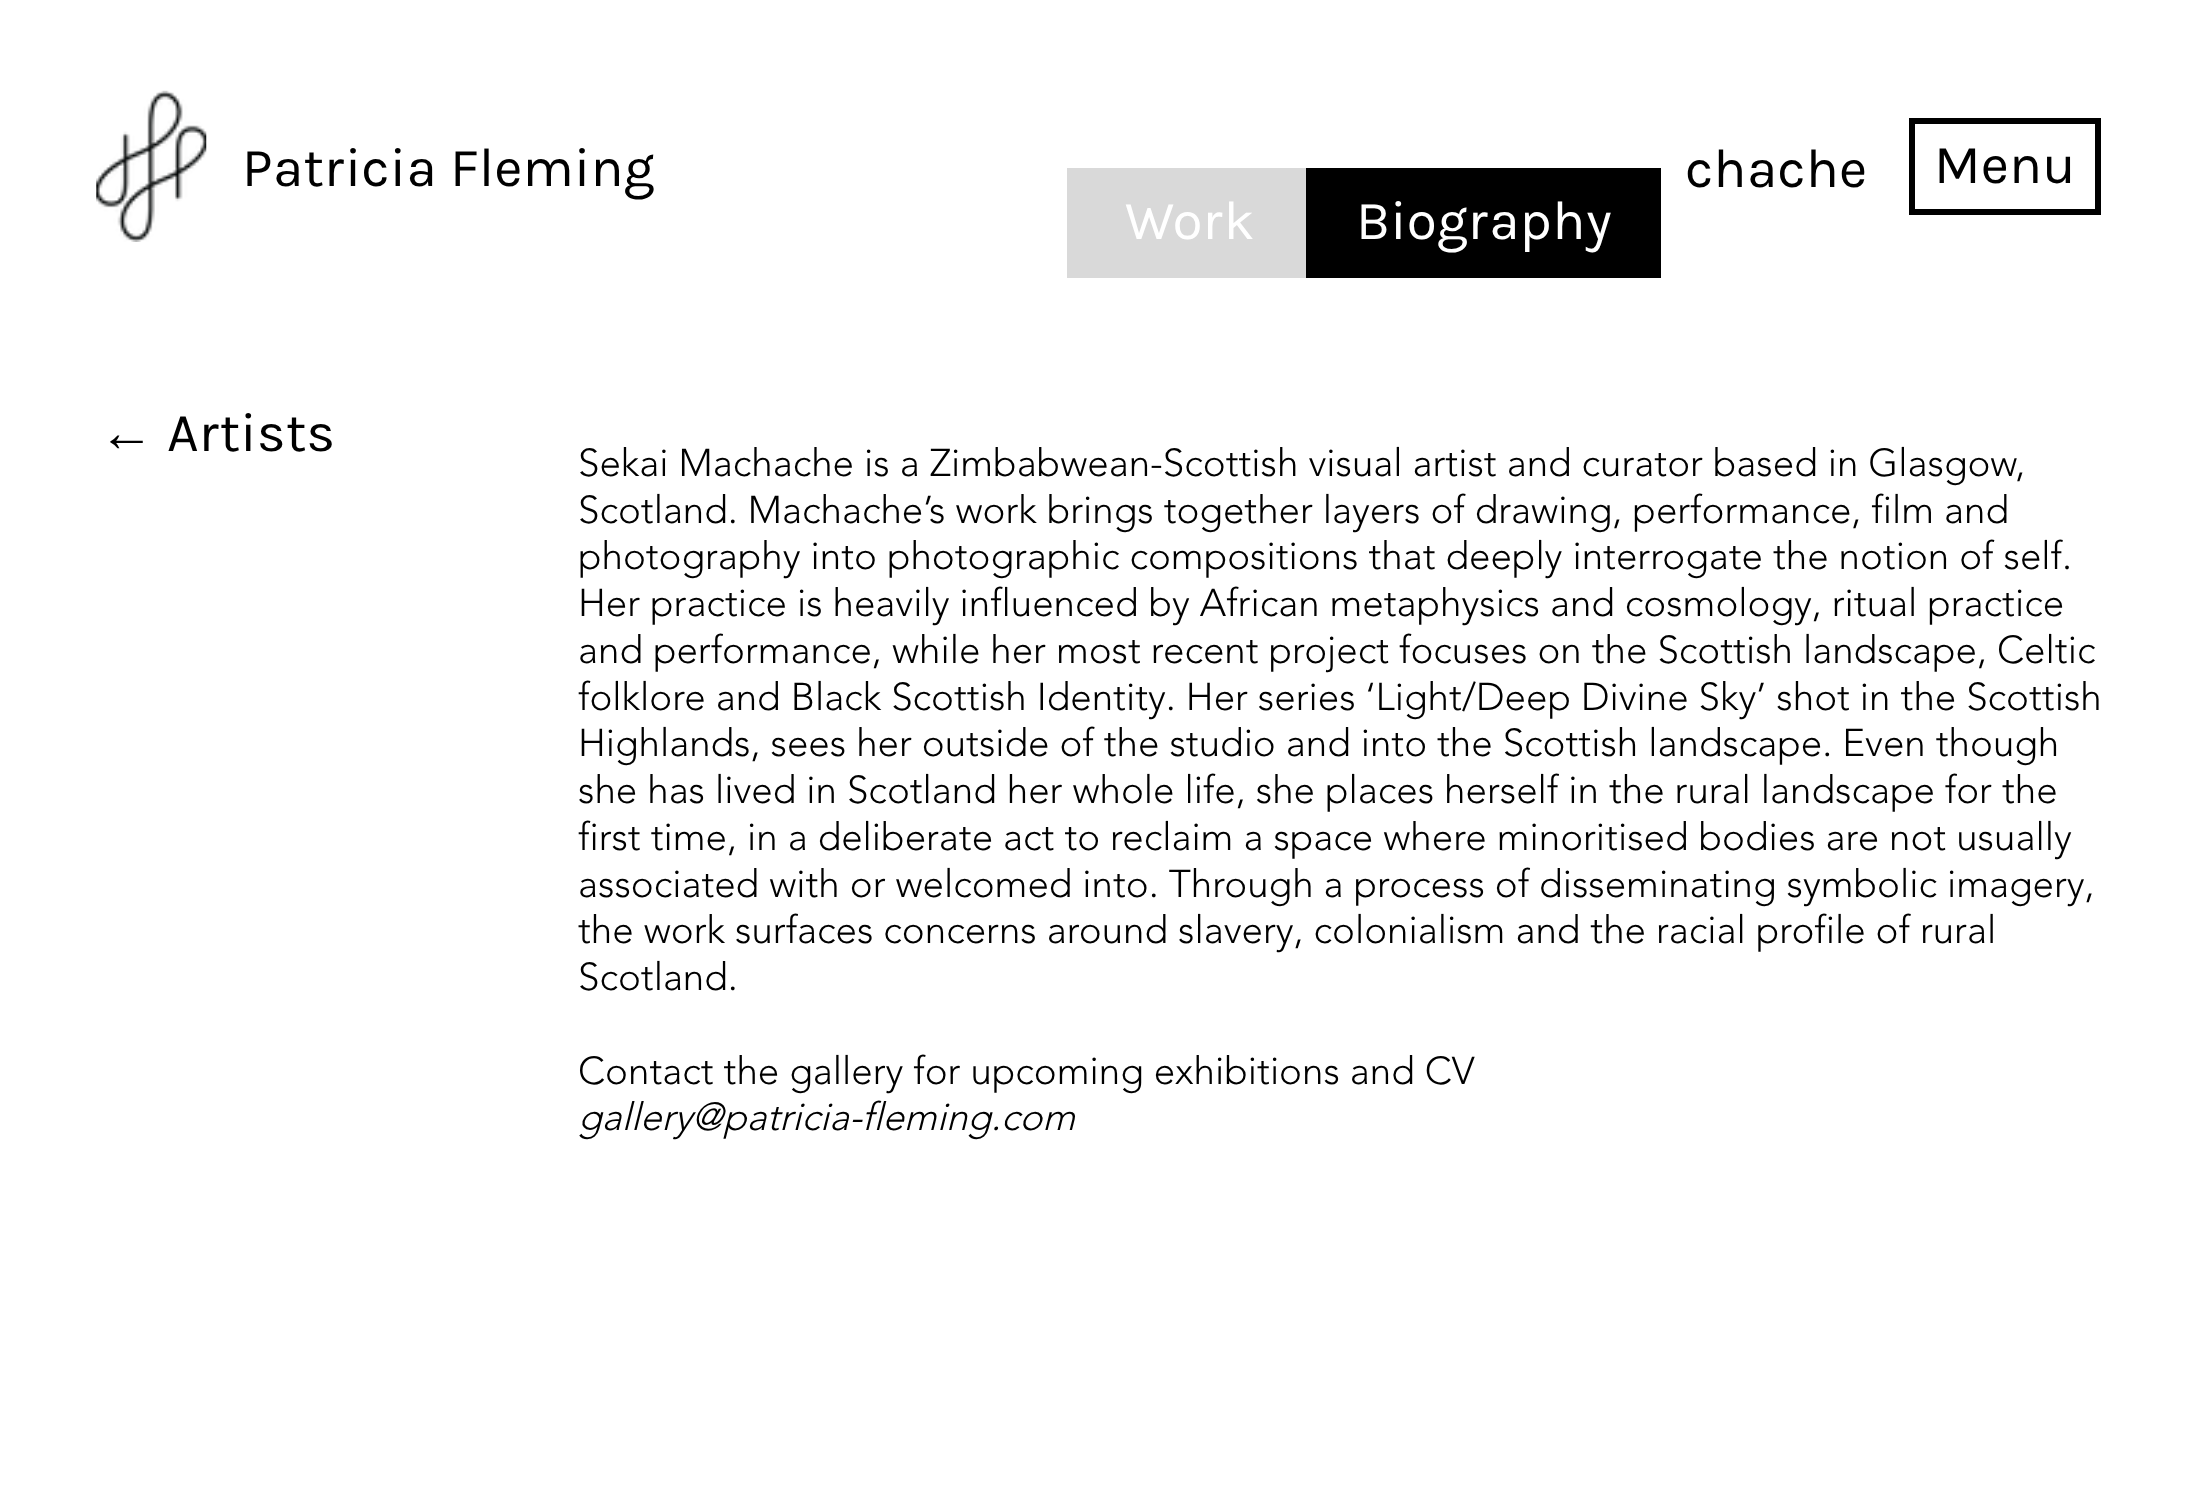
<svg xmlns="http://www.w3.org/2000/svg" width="2207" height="1485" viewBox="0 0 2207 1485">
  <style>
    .t1 { font: 55px Karla; fill: #000; }
    .t2 { font: 55px Liberation Serif; fill: #000; }
    .t3 { font: 55px Karla; fill: #fff; }
    .t4 { font: 300 38.5px 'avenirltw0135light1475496'; fill: #000; }
    .t5 { font: italic 300 38.5px 'avenirltw0135light1475496'; fill: #000; }
  </style>
  <rect width="100%" height="100%" fill="#fff"/>
  <image x="96" y="90" width="111" height="152" href="images/1.png"/>
  <text x="242" y="186" class="t1">Patricia Fleming</text>
  <rect x="1912" y="121" width="186" height="91" fill="none" stroke="#000" stroke-width="6"/>
  <text x="1934" y="183" class="t1">Menu</text>
  <text x="1685" y="187" class="t1">chache</text>
  <text x="99" y="451" class="t2">←</text>
  <text x="167" y="451" class="t1">Artists</text>
  <rect x="1067" y="168" width="239" height="110" fill="#d9d9d9"/>
  <text x="1125" y="239" class="t3">Work</text>
  <rect x="1306" y="168" width="355" height="110" fill="#000"/>
  <text x="1356" y="239" class="t3">Biography</text>
  <text x="578" y="476" class="t4">Sekai Machache is a Zimbabwean-Scottish visual artist and curator based in Glasgow,</text>
  <text x="578" y="523" class="t4">Scotland. Machache’s work brings together layers of drawing, performance, film and</text>
  <text x="578" y="569" class="t4">photography into photographic compositions that deeply interrogate the notion of self.</text>
  <text x="578" y="616" class="t4">Her practice is heavily influenced by African metaphysics and cosmology, ritual practice</text>
  <text x="578" y="663" class="t4">and performance, while her most recent project focuses on the Scottish landscape, Celtic</text>
  <text x="578" y="710" class="t4">folklore and Black Scottish Identity. Her series ‘Light/Deep Divine Sky’ shot in the Scottish</text>
  <text x="578" y="756" class="t4">Highlands, sees her outside of the studio and into the Scottish landscape. Even though</text>
  <text x="578" y="803" class="t4">she has lived in Scotland her whole life, she places herself in the rural landscape for the</text>
  <text x="578" y="850" class="t4">first time, in a deliberate act to reclaim a space where minoritised bodies are not usually</text>
  <text x="578" y="897" class="t4">associated with or welcomed into. Through a process of disseminating symbolic imagery,</text>
  <text x="578" y="943" class="t4">the work surfaces concerns around slavery, colonialism and the racial profile of rural</text>
  <text x="578" y="990" class="t4">Scotland.</text>
  <text x="578" y="1084" class="t4">Contact the gallery for upcoming exhibitions and CV</text>
  <text x="578" y="1130" class="t5">gallery@patricia-fleming.com</text>
</svg>
